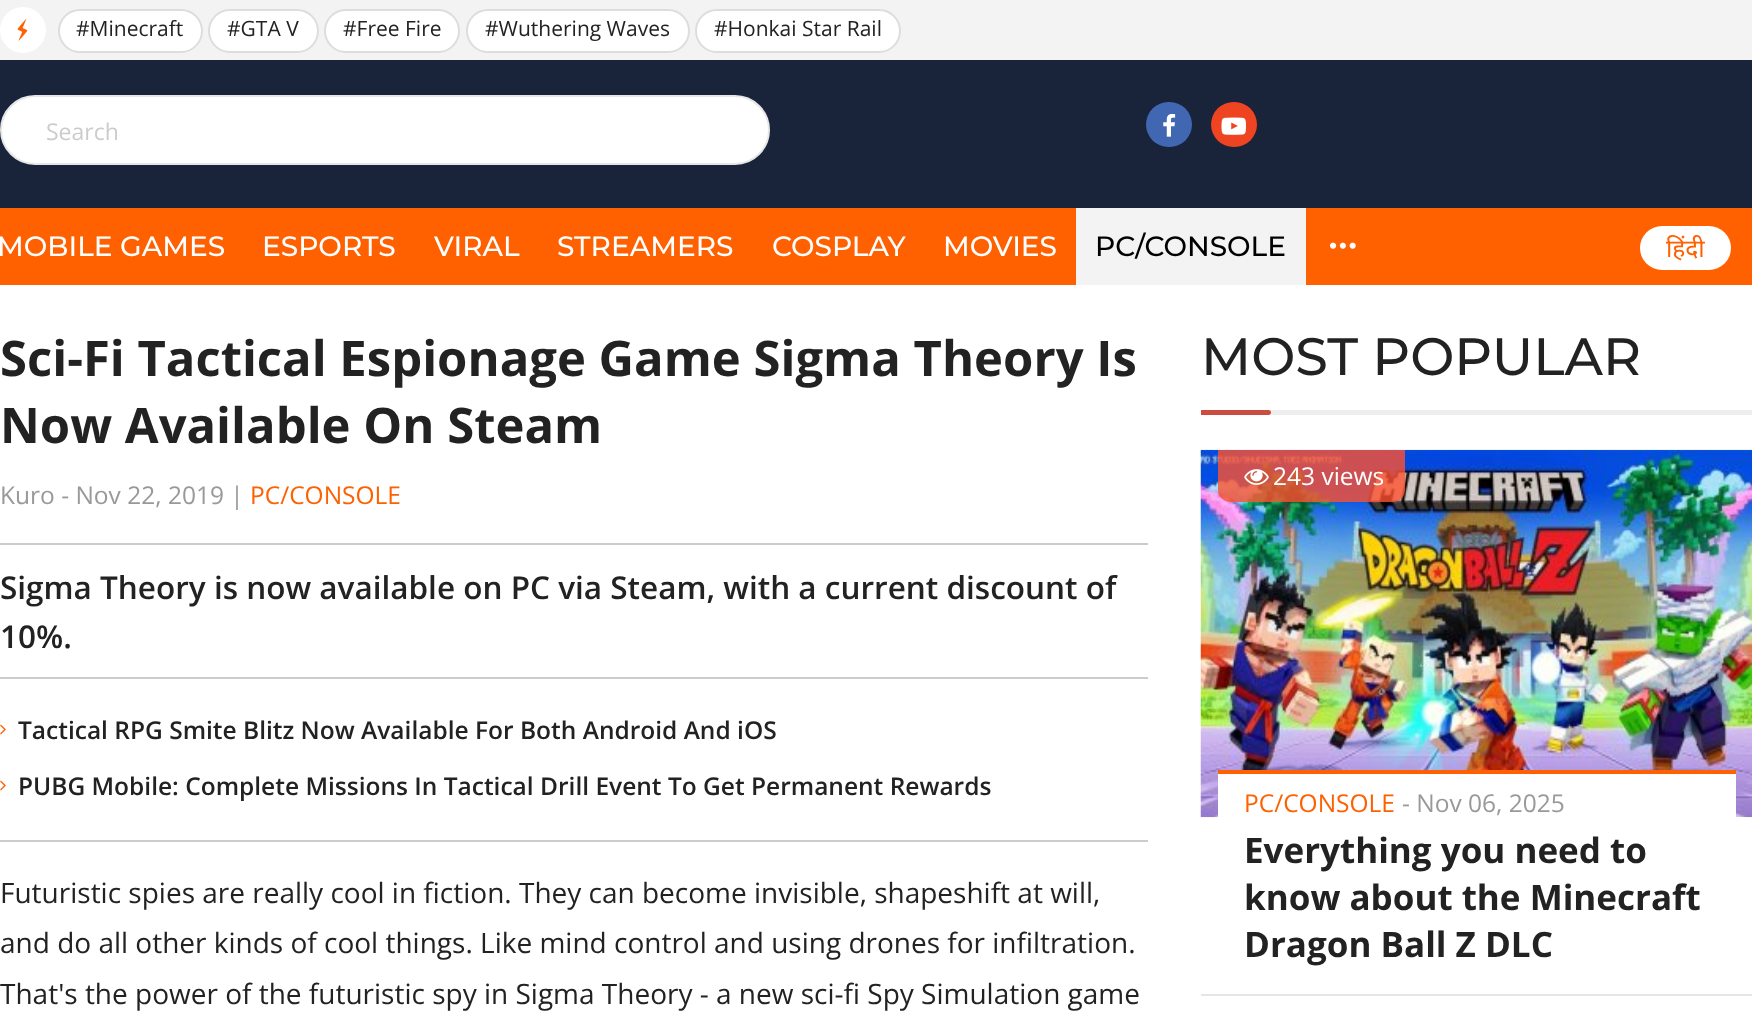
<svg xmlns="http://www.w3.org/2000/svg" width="1752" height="1019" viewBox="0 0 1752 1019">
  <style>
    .t1 { font: 21px Open Sans; fill: #222; }
    .t2 { font: 23px Open Sans; fill: #ccc; }
    .t3 { font: 500 28px Montserrat; fill: #fff; }
    .t4 { font: 500 28px Montserrat; fill: #000; }
    .t5 { font: 24.5px Noto Sans; fill: #ff6000; }
    .t6 { font: bold 49px Open Sans; fill: #222; }
    .t7 { font: 24.5px Open Sans; fill: #999; }
    .t8 { font: 24.5px Open Sans; fill: #ff6000; }
    .t9 { font: 600 31.5px Open Sans; fill: #222; }
    .t10 { font: 600 24.5px Open Sans; fill: #222; }
    .t11 { font: 28px Open Sans; fill: #222; }
    .t12 { font: 500 52.5px Montserrat; fill: #222; }
    .t13 { font: 24.5px Open Sans; fill: #fff; }
    .t14 { font: bold 35px Open Sans; fill: #222; }
  </style>
  <rect width="100%" height="100%" fill="#fff"/>
  <rect x="0" y="60" width="1752" height="148" fill="#19233a"/>
  <rect x="0" y="0" width="1752" height="60" fill="#f3f3f3"/>
  <circle cx="23" cy="30" r="23" fill="#fff"/>
  <image x="17" y="19" width="11" height="22" href="images/1.png"/>
  <rect x="59" y="10" width="143" height="42" rx="21" fill="#fff" stroke="#ddd" stroke-width="2"/>
  <text x="76" y="36" class="t1">#Minecraft</text>
  <rect x="209" y="10" width="109" height="42" rx="21" fill="#fff" stroke="#ddd" stroke-width="2"/>
  <text x="227" y="36" class="t1">#GTA V</text>
  <rect x="325" y="10" width="134" height="42" rx="21" fill="#fff" stroke="#ddd" stroke-width="2"/>
  <text x="343" y="36" class="t1">#Free Fire</text>
  <rect x="467" y="10" width="222" height="42" rx="21" fill="#fff" stroke="#ddd" stroke-width="2"/>
  <text x="485" y="36" class="t1">#Wuthering Waves</text>
  <rect x="696" y="10" width="204" height="42" rx="21" fill="#fff" stroke="#ddd" stroke-width="2"/>
  <text x="714" y="36" class="t1">#Honkai Star Rail</text>
  <rect x="1" y="96" width="768" height="68" rx="34" fill="#fff" stroke="#e6e6e6" stroke-width="2"/>
  <text x="46" y="140" class="t2">Search</text>
  <rect x="1146" y="102" width="46" height="45" rx="22.5" fill="#4267b2"/>
  <image x="1163" y="113" width="13" height="24" href="images/2.png"/>
  <rect x="1211" y="102" width="46" height="45" rx="22.5" fill="#ee4421"/>
  <image x="1221" y="117" width="25" height="18" href="images/3.png"/>
  <rect x="0" y="208" width="1752" height="77" fill="#ff6000"/>
  <text x="-3" y="256" class="t3">MOBILE GAMES</text>
  <text x="262" y="256" class="t3">ESPORTS</text>
  <text x="434" y="256" class="t3">VIRAL</text>
  <text x="557" y="256" class="t3">STREAMERS</text>
  <text x="772" y="256" class="t3">COSPLAY</text>
  <text x="943" y="256" class="t3">MOVIES</text>
  <rect x="1076" y="208" width="230" height="77" fill="#f3f3f3"/>
  <text x="1095" y="256" class="t4">PC/CONSOLE</text>
  <image x="1330" y="242" width="26" height="7" href="images/4.png"/>
  <rect x="1640" y="226" width="91" height="44" rx="22" fill="#fff"/>
  <text x="1666" y="257" class="t5">हिंदी</text>
  <text x="0" y="376" class="t6">Sci-Fi Tactical Espionage Game Sigma Theory Is</text>
  <text x="0" y="443" class="t6">Now Available On Steam</text>
  <text x="0" y="504" class="t7">Kuro - Nov 22, 2019 |</text>
  <text x="250" y="504" class="t8">PC/CONSOLE</text>
  <rect x="0" y="543" width="1148" height="2" fill="#ccc"/>
  <text x="0" y="599" class="t9">Sigma Theory is now available on PC via Steam, with a current discount of</text>
  <text x="0" y="648" class="t9">10%.</text>
  <rect x="0" y="677" width="1148" height="2" fill="#ccc"/>
  <image x="0" y="724" width="6" height="11" href="images/5.png"/>
  <text x="18" y="739" class="t10">Tactical RPG Smite Blitz Now Available For Both Android And iOS</text>
  <image x="0" y="780" width="6" height="11" href="images/5.png"/>
  <text x="18" y="795" class="t10">PUBG Mobile: Complete Missions In Tactical Drill Event To Get Permanent Rewards</text>
  <rect x="0" y="840" width="1148" height="2" fill="#ccc"/>
  <text x="0" y="903" class="t11">Futuristic spies are really cool in fiction. They can become invisible, shapeshift at will,</text>
  <text x="0" y="953" class="t11">and do all other kinds of cool things. Like mind control and using drones for infiltration.</text>
  <text x="0" y="1004" class="t11">That's the power of the futuristic spy in Sigma Theory - a new sci-fi Spy Simulation game</text>
  <text x="1201" y="375" class="t12">MOST POPULAR</text>
  <rect x="1268" y="410" width="484" height="5" fill="#eee"/>
  <path d="M1201 410H1268.5C1270 410 1271 411 1271 412.5C1271 414 1270 415 1268.5 415H1201Z" fill="#cb4d42"/>
  <rect x="1201" y="994" width="551" height="2" fill="#e6e6e6"/>
  <image x="1200" y="449" width="552" height="369" href="images/6.png"/>
  <path d="M1218 450H1405V490C1405 496.5 1399.5 502 1393 502H1230C1223.5 502 1218 496.5 1218 490Z" fill="#ff512fcc"/>
  <image x="1244" y="469" width="25" height="16" href="images/7.png"/>
  <text x="1273" y="485" class="t13">243 views</text>
  <rect x="1218" y="774" width="518" height="44" fill="#fff"/>
  <rect x="1218" y="770" width="518" height="4" fill="#ff6000"/>
  <text x="1244" y="812" class="t8">PC/CONSOLE</text>
  <text x="1402" y="812" class="t7">- Nov 06, 2025</text>
  <text x="1244" y="863" class="t14">Everything you need to</text>
  <text x="1244" y="910" class="t14">know about the Minecraft</text>
  <text x="1244" y="957" class="t14">Dragon Ball Z DLC</text>
</svg>
